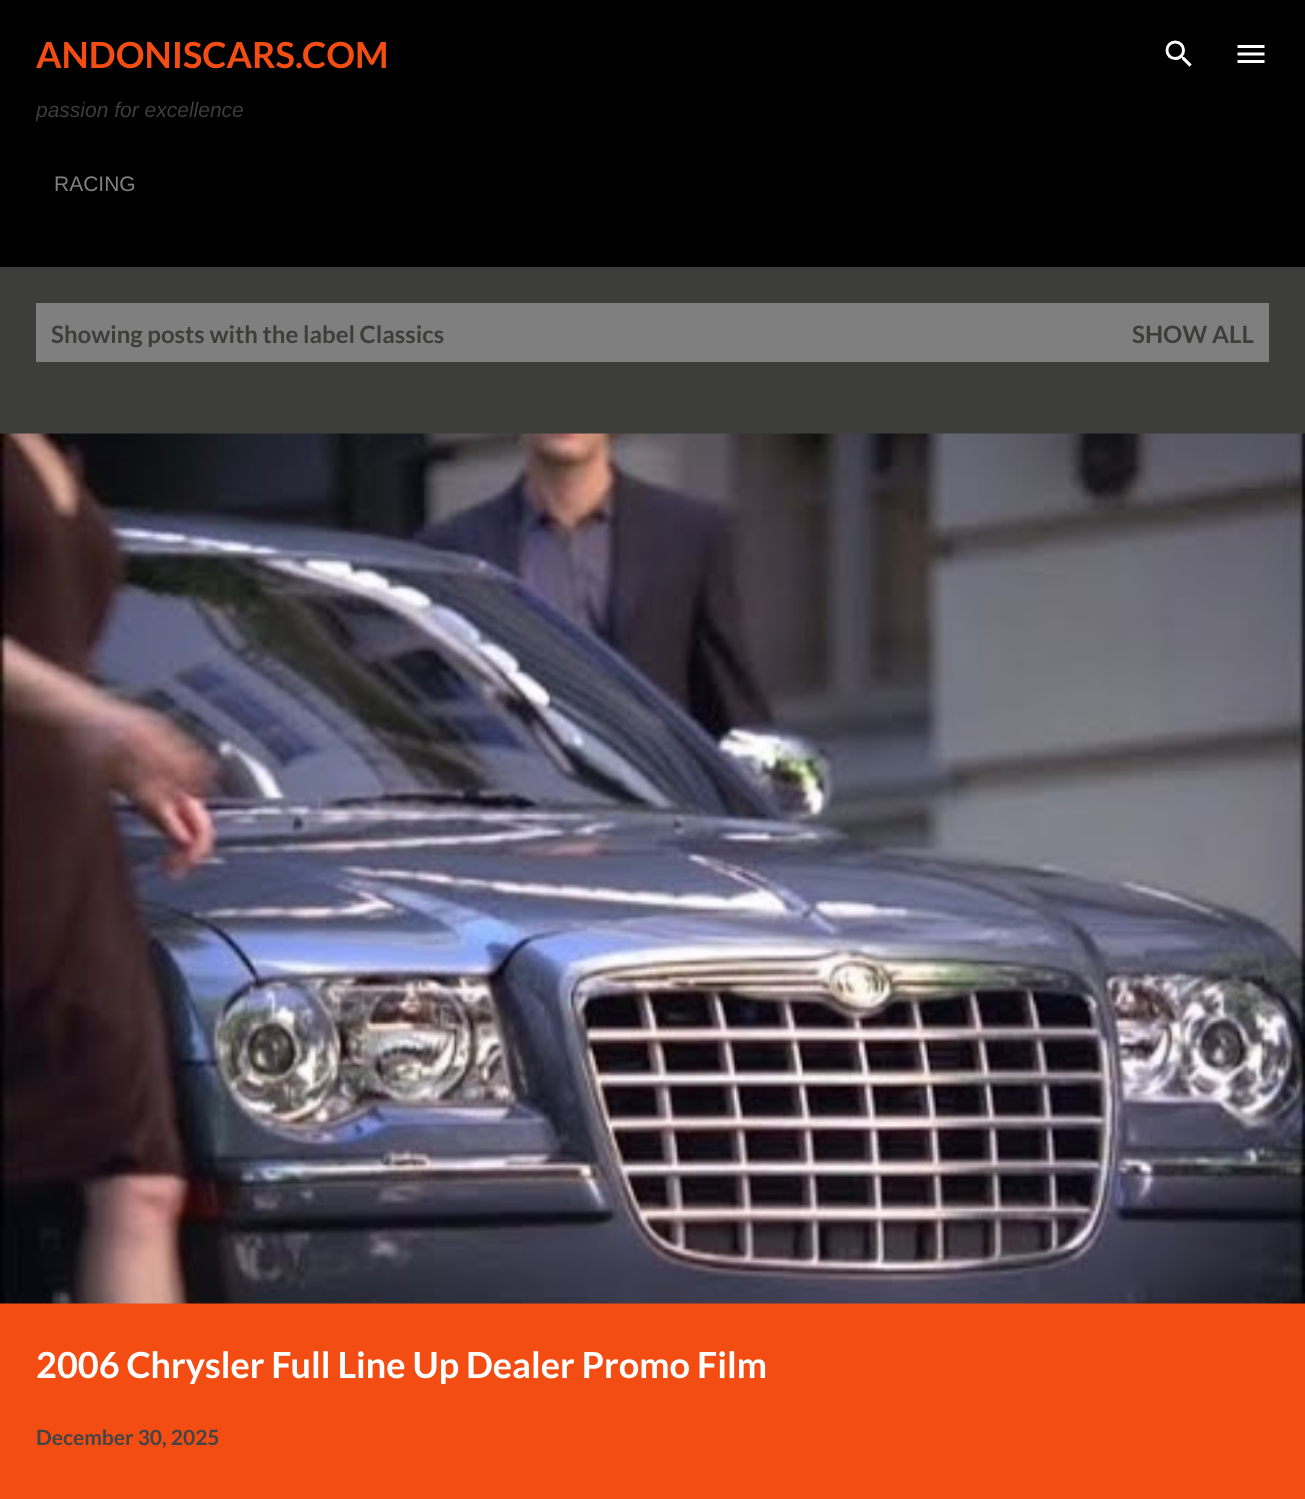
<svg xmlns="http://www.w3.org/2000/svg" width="1305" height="1499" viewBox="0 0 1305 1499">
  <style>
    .t1 { font: bold 36px Lato; fill: #f34d13; }
    .t2 { font: italic 21px Liberation Sans; fill: #3d3e3c; }
    .t3 { font: 21px Liberation Sans; fill: #7f7f7f; }
    .t4 { font: bold 24px Lato; fill: #3d3e3c; }
    .t5 { font: bold 36px Lato; fill: #fff; }
    .t6 { font: bold 21px Lato; fill: #444; }
  </style>
  <defs>
    <clipPath id="clip1"><rect x="36" y="36" width="1161" height="111"/></clipPath>
  </defs>
  <rect width="100%" height="100%" fill="#3d3e3b"/>
  <rect x="0" y="0" width="1305" height="267" fill="#000"/>
  <text x="36" y="68" class="t1">ANDONISCARS.COM</text>
  <g clip-path="url(#clip1)">
    <text x="36" y="117" class="t2">passion for excellence</text>
  </g>
  <image x="1165" y="40" width="27" height="27" href="images/1.png"/>
  <image x="1237" y="45" width="28" height="18" href="images/2.png"/>
  <text x="54" y="191" class="t3">RACING</text>
  <rect x="36" y="303" width="1233" height="59" fill="#7f7f7f"/>
  <text x="51" y="343" class="t4">Showing posts with the label Classics</text>
  <text x="1132" y="343" class="t4">SHOW ALL</text>
  <rect x="0" y="1303" width="1305" height="196" fill="#f34d13"/>
  <image x="0" y="433" width="1305" height="871" href="images/3.png"/>
  <text x="36" y="1378" class="t5">2006 Chrysler Full Line Up Dealer Promo Film</text>
  <text x="36" y="1445" class="t6">December 30, 2025</text>
</svg>
